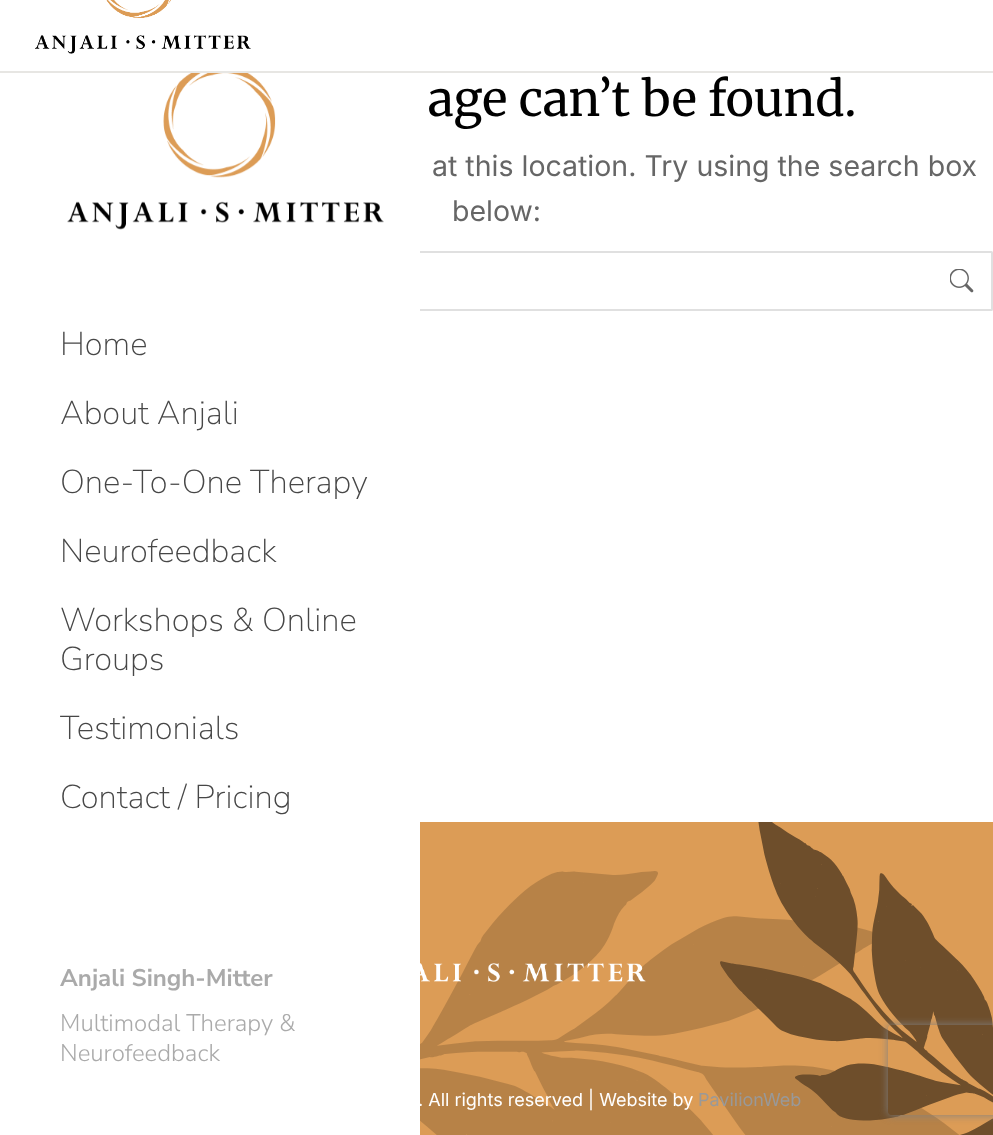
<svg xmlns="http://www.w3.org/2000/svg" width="993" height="1135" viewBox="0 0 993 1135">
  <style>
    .t1 { font: 48px Merriweather; fill: #000; }
    .t2 { font: 28.5px Inter; fill: #666; }
    .t3 { font: 200 33px Nunito Sans; fill: #474747; }
    .t4 { font: bold 24px Nunito Sans; fill: #aaa; }
    .t5 { font: 300 24px Nunito Sans; fill: #aaa; }
    .t6 { font: 18px Inter; fill: #fff; }
    .t7 { font: 18px Inter; fill: #999; }
  </style>
  <defs>
    <clipPath id="clip1"><path d="M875 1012H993V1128H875ZM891 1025H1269C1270.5 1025 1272 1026.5 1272 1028V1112C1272 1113.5 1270.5 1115 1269 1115H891C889.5 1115 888 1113.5 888 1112V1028C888 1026.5 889.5 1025 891 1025Z" clip-rule="evenodd"/></clipPath>
  </defs>
  <rect width="100%" height="100%" fill="#fff"/>
  <rect x="0" y="71" width="993" height="2" fill="#e7e6e3"/>
  <image x="35" y="0" width="216" height="54" href="images/1.png"/>
  <text x="428" y="116" class="t1">age can’t be found.</text>
  <text x="432" y="176" class="t2">at this location. Try using the search box</text>
  <text x="452" y="221" class="t2">below:</text>
  <rect x="1" y="252" width="991" height="58" rx="0.5" fill="none" stroke="#e0e0e0" stroke-width="2"/>
  <image x="950" y="269" width="24" height="24" href="images/2.png"/>
  <rect x="0" y="251" width="420" height="60" fill="#fff"/>
  <image x="67" y="73" width="317" height="157" href="images/3.png"/>
  <text x="60" y="355" class="t3">Home</text>
  <text x="60" y="424" class="t3">About Anjali</text>
  <text x="60" y="493" class="t3">One-To-One Therapy</text>
  <text x="60" y="562" class="t3">Neurofeedback</text>
  <text x="60" y="631" class="t3">Workshops &amp; Online</text>
  <text x="60" y="670" class="t3">Groups</text>
  <text x="60" y="739" class="t3">Testimonials</text>
  <text x="60" y="808" class="t3">Contact / Pricing</text>
  <text x="60" y="986" class="t4">Anjali Singh-Mitter</text>
  <text x="60" y="1031" class="t5">Multimodal Therapy &amp;</text>
  <text x="60" y="1061" class="t5">Neurofeedback</text>
  <rect x="420" y="822" width="573" height="313" fill="#dc9c56"/>
  <image x="420" y="822" width="573" height="313" href="images/4.png"/>
  <image x="420" y="963" width="226" height="19" href="images/5.png"/>
  <text x="418" y="1106" class="t6">. All rights reserved | Website by</text>
  <text x="698" y="1106" class="t7">PavilionWeb</text>
  <g clip-path="url(#clip1)">
    <rect x="888" y="1025" width="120" height="90" rx="3" fill="#808080" filter="blur(4px)"/>
  </g>
</svg>
